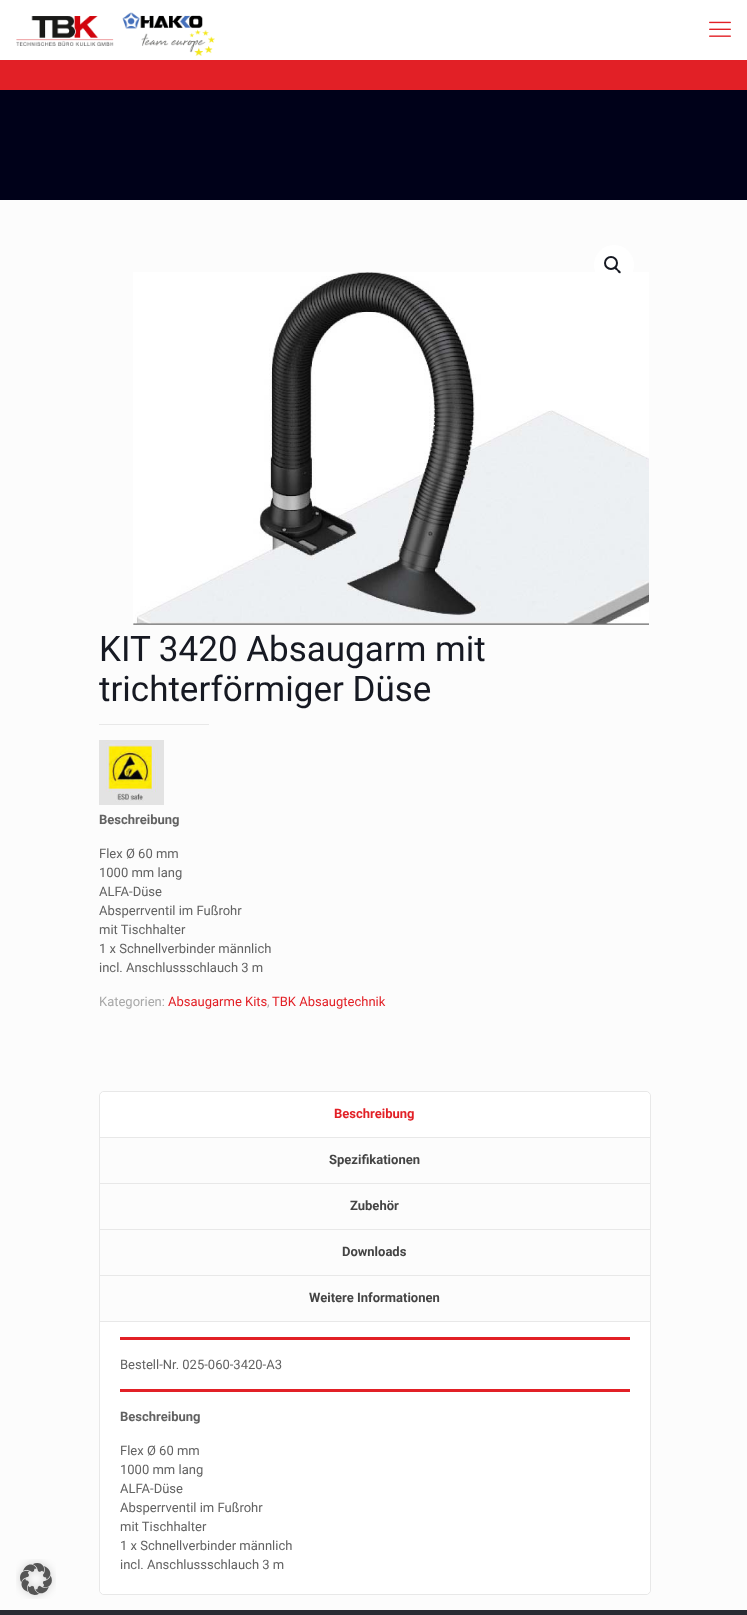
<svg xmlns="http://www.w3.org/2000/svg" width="747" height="1615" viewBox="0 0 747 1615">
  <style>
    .t1 { font: 35px Roboto; fill: #161922; }
    .t2 { font: bold 13px Roboto; fill: #626262; }
    .t3 { font: 13px Roboto; fill: #626262; }
    .t4 { font: 13px Roboto; fill: #a8a8a8; }
    .t5 { font: 13px Roboto; fill: #e22026; }
    .t6 { font: bold 13px Roboto; fill: #e22026; }
    .t7 { font: bold 13px Roboto; fill: #444; }
  </style>
  <rect width="100%" height="100%" fill="#fcfcfc"/>
  <rect x="0" y="90" width="747" height="110" fill="#000119"/>
  <rect x="0" y="0" width="747" height="60" fill="#fff"/>
  <rect x="0" y="60" width="747" height="30" fill="#e22026"/>
  <image x="16" y="12" width="199" height="44" href="images/1.png"/>
  <image x="709" y="21" width="22" height="16" href="images/2.png"/>
  <image x="133" y="272" width="516" height="353" href="images/3.png"/>
  <circle cx="614" cy="265" r="20" fill="#fff"/>
  <circle cx="611" cy="263" r="6" fill="none" stroke="#161922" stroke-width="2"/>
  <path d="M614.5 267C616 266 617.5 268.5 618 269.5C619 270 621.5 271.5 620.5 273C619 274 617.5 271.5 617 270.5C616 270 613.5 268.5 614.5 267Z" fill="#161922"/>
  <text x="99" y="661" class="t1">KIT 3420 Absaugarm mit</text>
  <text x="99" y="701" class="t1">trichterförmiger Düse</text>
  <rect x="99" y="724" width="110" height="1" fill="#e8e8e8"/>
  <image x="99" y="740" width="65" height="65" href="images/4.png"/>
  <text x="99" y="824" class="t2">Beschreibung</text>
  <text x="99" y="858" class="t3">Flex Ø 60 mm</text>
  <text x="99" y="877" class="t3">1000 mm lang</text>
  <text x="99" y="896" class="t3">ALFA-Düse</text>
  <text x="99" y="915" class="t3">Absperrventil im Fußrohr</text>
  <text x="99" y="934" class="t3">mit Tischhalter</text>
  <text x="99" y="953" class="t3">1 x Schnellverbinder männlich</text>
  <text x="99" y="972" class="t3">incl. Anschlussschlauch 3 m</text>
  <text x="99" y="1006" class="t4">Kategorien:</text>
  <text x="168" y="1006" class="t5">Absaugarme Kits</text>
  <text x="267" y="1006" class="t4">,</text>
  <text x="272" y="1006" class="t5">TBK Absaugtechnik</text>
  <rect x="99.5" y="1091.5" width="551" height="503" rx="4.5" fill="none" stroke="#e8e8e8"/>
  <rect x="100" y="1321" width="550" height="1" fill="#e8e8e8"/>
  <rect x="100" y="1137" width="550" height="1" fill="#e8e8e8"/>
  <path d="M104 1092H646C648 1092 650 1094 650 1096V1137H100V1096C100 1094 102 1092 104 1092Z" fill="#fff"/>
  <text x="334" y="1118" class="t6">Beschreibung</text>
  <rect x="100" y="1183" width="550" height="1" fill="#e8e8e8"/>
  <text x="329" y="1164" class="t7">Spezifikationen</text>
  <rect x="100" y="1229" width="550" height="1" fill="#e8e8e8"/>
  <text x="350" y="1210" class="t7">Zubehör</text>
  <rect x="100" y="1275" width="550" height="1" fill="#e8e8e8"/>
  <text x="342" y="1256" class="t7">Downloads</text>
  <text x="309" y="1302" class="t7">Weitere Informationen</text>
  <path d="M100 1322H650V1590C650 1592 648 1594 646 1594H104C102 1594 100 1592 100 1590Z" fill="#fff"/>
  <rect x="120" y="1337" width="510" height="3" fill="#e22026"/>
  <text x="120" y="1369" class="t3">Bestell-Nr. 025-060-3420-A3</text>
  <rect x="120" y="1389" width="510" height="3" fill="#e22026"/>
  <text x="120" y="1421" class="t2">Beschreibung</text>
  <text x="120" y="1455" class="t3">Flex Ø 60 mm</text>
  <text x="120" y="1474" class="t3">1000 mm lang</text>
  <text x="120" y="1493" class="t3">ALFA-Düse</text>
  <text x="120" y="1512" class="t3">Absperrventil im Fußrohr</text>
  <text x="120" y="1531" class="t3">mit Tischhalter</text>
  <text x="120" y="1550" class="t3">1 x Schnellverbinder männlich</text>
  <text x="120" y="1569" class="t3">incl. Anschlussschlauch 3 m</text>
  <rect x="0" y="1610" width="747" height="5" fill="#292b33"/>
  <image x="16" y="1559" width="40" height="40" href="images/5.png"/>
</svg>
